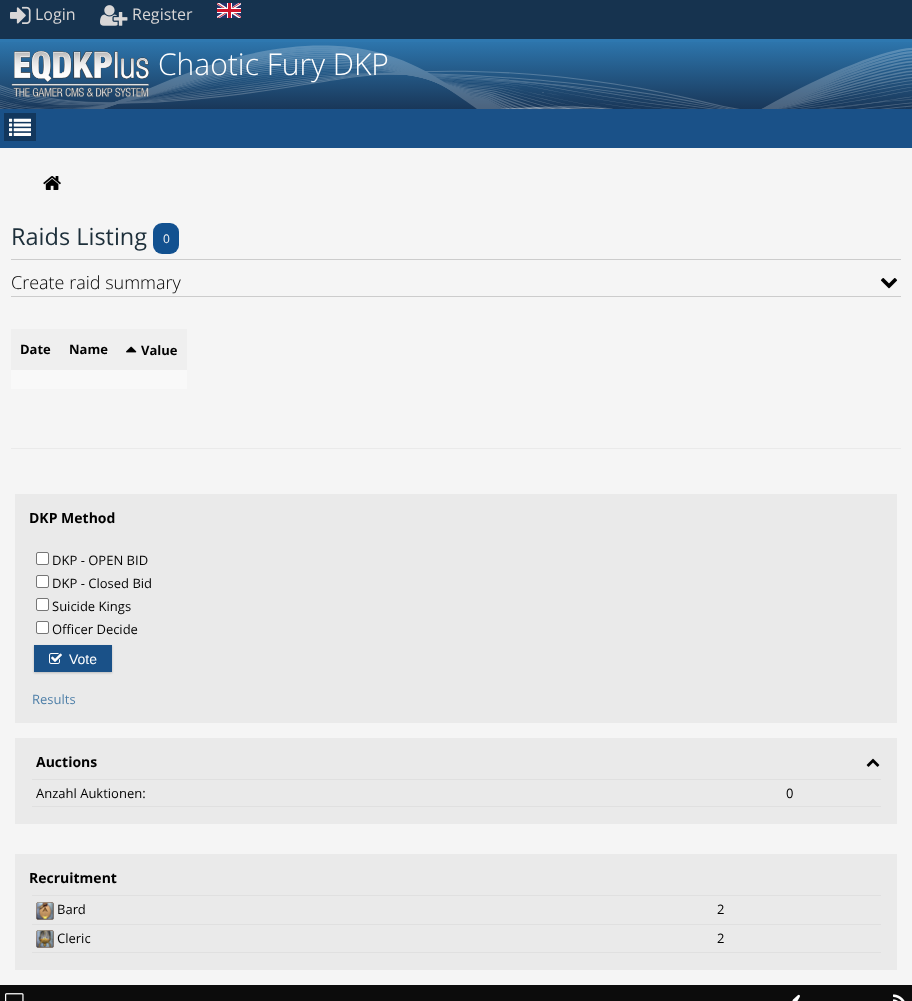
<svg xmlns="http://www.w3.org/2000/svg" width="912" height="1001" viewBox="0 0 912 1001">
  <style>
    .t1 { font: 16px Open Sans; fill: #d9d7d7; }
    .t2 { font: 300 30px Open Sans; fill: #fff; }
    .t3 { font: 23.5px Open Sans; fill: #1d2f3a; }
    .t4 { font: 12px Open Sans; fill: #f5f5f5; }
    .t5 { font: 300 18px Open Sans; fill: #000; }
    .t6 { font: bold 13px Open Sans; fill: #000; }
    .t7 { font: bold 14px Open Sans; fill: #000; }
    .t8 { font: 13px Open Sans; fill: #000; }
    .t9 { font: 14px Liberation Sans; fill: #fff; }
    .t10 { font: 13px Open Sans; fill: #4e7fa8; }
  </style>
  <rect width="100%" height="100%" fill="#f5f5f5"/>
  <rect x="0" y="0" width="912" height="39" fill="#16334f"/>
  <image x="10" y="6" width="21" height="18" href="images/1.png"/>
  <text x="35" y="20" class="t1">Login</text>
  <image x="100" y="5" width="28" height="21" href="images/2.png"/>
  <text x="132" y="20" class="t1">Register</text>
  <image x="217" y="3" width="24" height="15" href="images/3.png"/>
  <rect x="0" y="39" width="912" height="3" fill="#2e78b0"/>
  <image x="0" y="42" width="912" height="67" href="images/4.png"/>
  <image x="11" y="51" width="138" height="46" href="images/5.png"/>
  <text x="158" y="75" class="t2">Chaotic Fury DKP</text>
  <rect x="0" y="109" width="912" height="39" fill="#1a5188"/>
  <rect x="4" y="113" width="32" height="28" fill="#12375d"/>
  <image x="9" y="118" width="22" height="18" href="images/6.png"/>
  <image x="43" y="176" width="18" height="14" href="images/7.png"/>
  <rect x="11" y="259" width="890" height="1" fill="#ccc"/>
  <text x="11" y="245" class="t3">Raids Listing</text>
  <rect x="153" y="223" width="26" height="31" rx="9" fill="#125190"/>
  <text x="163" y="243" class="t4">0</text>
  <rect x="11" y="296" width="890" height="1" fill="#ccc"/>
  <text x="11" y="289" class="t5">Create raid summary</text>
  <image x="880" y="278" width="18" height="11" href="images/8.png"/>
  <rect x="11" y="329" width="176" height="41" fill="#efefef"/>
  <text x="20" y="354" class="t6">Date</text>
  <text x="69" y="354" class="t6">Name</text>
  <image x="126" y="346" width="11" height="7" href="images/9.png"/>
  <text x="141" y="355" class="t6">Value</text>
  <rect x="11" y="370" width="176" height="19" fill="#f9f9f9"/>
  <rect x="11" y="448" width="890" height="1" fill="#eaeaea"/>
  <rect x="15" y="494" width="882" height="229" fill="#eaeaea"/>
  <text x="29" y="523" class="t7">DKP Method</text>
  <rect x="36.5" y="552.5" width="12" height="12" rx="1.5" fill="#fff" stroke="#767676"/>
  <text x="52" y="565" class="t8">DKP - OPEN BID</text>
  <rect x="36.5" y="575.5" width="12" height="12" rx="1.5" fill="#fff" stroke="#767676"/>
  <text x="52" y="588" class="t8">DKP - Closed Bid</text>
  <rect x="36.5" y="598.5" width="12" height="12" rx="1.5" fill="#fff" stroke="#767676"/>
  <text x="52" y="611" class="t8">Suicide Kings</text>
  <rect x="36.5" y="621.5" width="12" height="12" rx="1.5" fill="#fff" stroke="#767676"/>
  <text x="52" y="634" class="t8">Officer Decide</text>
  <rect x="34" y="646" width="78" height="27" fill="#00000033" filter="blur(1px)"/>
  <rect x="34" y="645" width="78" height="27" fill="#1a5188"/>
  <image x="49" y="653" width="13" height="11" href="images/10.png"/>
  <text x="69" y="664" class="t9">Vote</text>
  <text x="32" y="704" class="t10">Results</text>
  <rect x="15" y="738" width="882" height="86" fill="#eaeaea"/>
  <text x="36" y="767" class="t7">Auctions</text>
  <image x="866" y="758" width="14" height="9" href="images/11.png"/>
  <text x="36" y="798" class="t8">Anzahl Auktionen:</text>
  <rect x="32" y="779" width="849" height="1" fill="#e0e0e0"/>
  <rect x="32" y="806" width="849" height="1" fill="#e0e0e0"/>
  <text x="786" y="798" class="t8">0</text>
  <rect x="15" y="854" width="882" height="116" fill="#eaeaea"/>
  <text x="29" y="883" class="t7">Recruitment</text>
  <image x="36" y="902" width="18" height="18" href="images/12.png"/>
  <text x="57" y="914" class="t8">Bard</text>
  <rect x="32" y="895" width="849" height="1" fill="#e0e0e0"/>
  <text x="717" y="914" class="t8">2</text>
  <image x="36" y="930" width="18" height="18" href="images/13.png"/>
  <text x="57" y="943" class="t8">Cleric</text>
  <rect x="32" y="924" width="849" height="1" fill="#e0e0e0"/>
  <rect x="32" y="952" width="849" height="1" fill="#e0e0e0"/>
  <text x="717" y="943" class="t8">2</text>
  <rect x="0" y="985" width="912" height="16" fill="#0c0c0c"/>
  <image x="5" y="993" width="19" height="8" href="images/14.png"/>
  <image x="792" y="994" width="8" height="7" href="images/15.png"/>
  <image x="893" y="994" width="12" height="7" href="images/16.png"/>
</svg>
